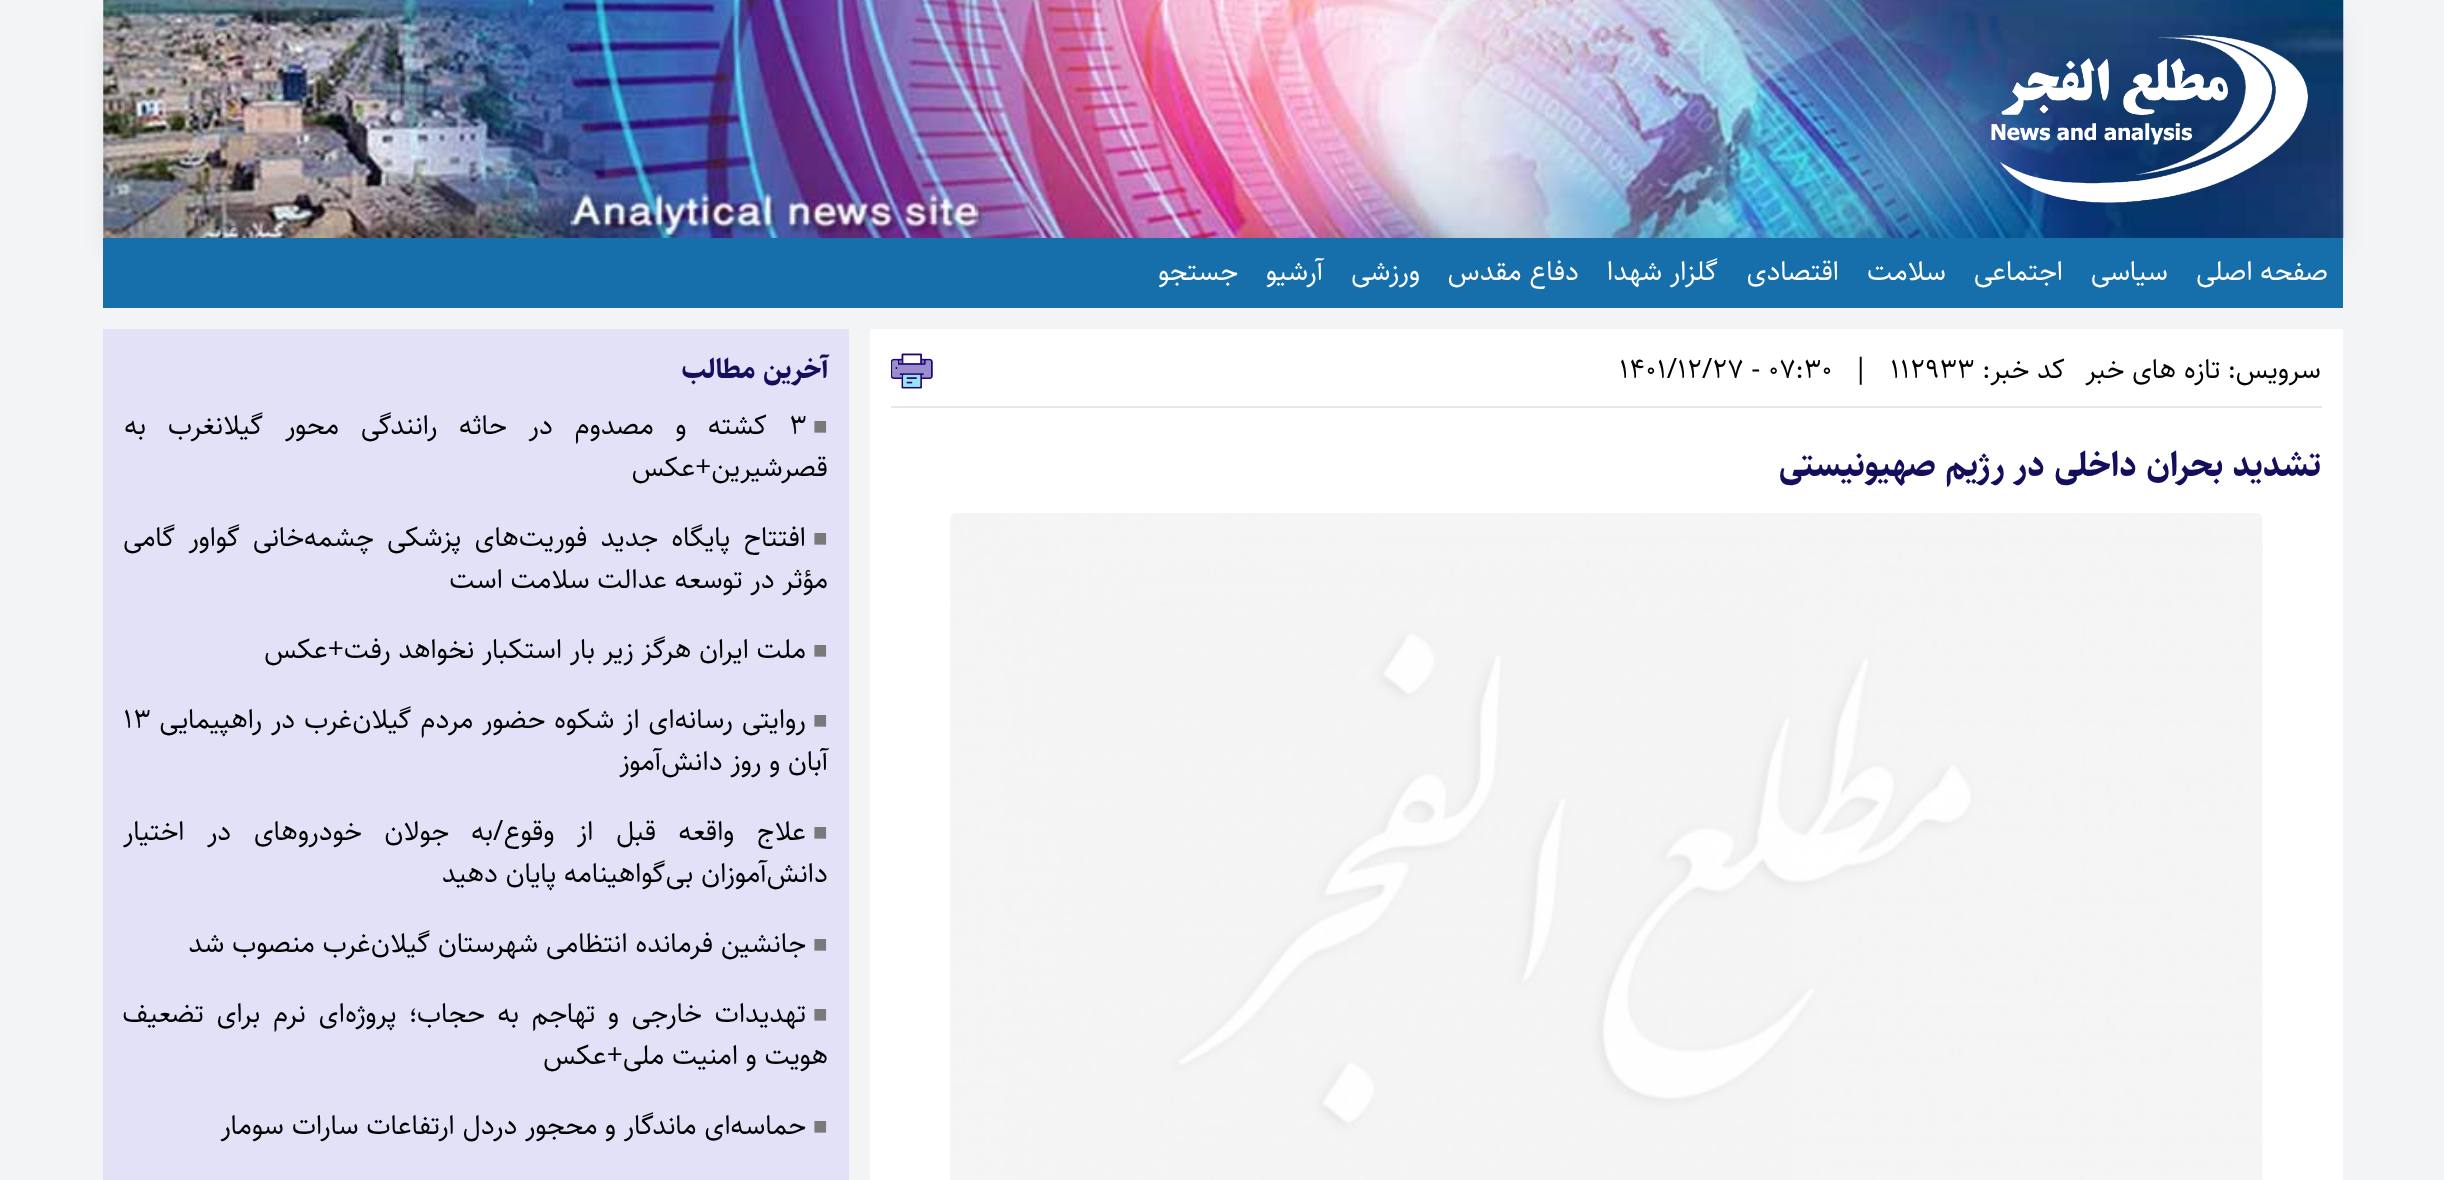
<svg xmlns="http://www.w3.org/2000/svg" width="2444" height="1180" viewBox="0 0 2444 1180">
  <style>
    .t1 { font: 28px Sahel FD; direction: rtl; fill: #fff; }
    .t2 { font: 28px Sahel FD; direction: rtl; fill: #000; }
    .t3 { font: 28px Sahel FD; fill: #000; }
    .t4 { font: bold 35px Sahel FD; direction: rtl; fill: #130f5c; }
    .t5 { font: bold 28px Sahel FD; direction: rtl; fill: #130f5c; }
    .t6 { font: 24px Liberation Sans; fill: #79797a; }
  </style>
  <rect width="100%" height="100%" fill="#f3f4f6"/>
  <rect x="109" y="23" width="2229" height="227" fill="#0000001a" filter="blur(13px)"/>
  <image x="103" y="0" width="2241" height="238" href="images/1.png"/>
  <image x="1991" y="35" width="317" height="168" href="images/2.png"/>
  <rect x="103" y="238" width="2240" height="70" fill="#166faa"/>
  <text x="2328" y="280" class="t1">صفحه اصلی</text>
  <text x="2168" y="280" class="t1">سیاسی</text>
  <text x="2063" y="280" class="t1">اجتماعی</text>
  <text x="1946" y="280" class="t1">سلامت</text>
  <text x="1839" y="280" class="t1">اقتصادی</text>
  <text x="1718" y="280" class="t1">گلزار شهدا</text>
  <text x="1579" y="280" class="t1">دفاع مقدس</text>
  <text x="1420" y="280" class="t1">ورزشی</text>
  <text x="1323" y="280" class="t1">آرشیو</text>
  <text x="1238" y="280" class="t1">جستجو</text>
  <rect x="870" y="329" width="1473" height="851" fill="#fff"/>
  <text x="2321" y="378" class="t2">سرویس: تازه های خبر</text>
  <text x="2065" y="378" class="t2">کد خبر:</text>
  <text x="1890" y="378" class="t3">112933</text>
  <text x="1853" y="378" class="t3">|</text>
  <text x="1619" y="378" class="t3">1401/12/27 - 07:30</text>
  <image x="891" y="353" width="42" height="36" href="images/3.png"/>
  <rect x="891" y="406" width="1431" height="2" fill="#e5e7eb"/>
  <text x="2321" y="476" class="t4">تشدید بحران داخلی در رژیم صهیونیستی</text>
  <image x="950" y="513" width="1313" height="667" href="images/4.png"/>
  <rect x="103" y="329" width="746" height="851" fill="#e3e1f7"/>
  <text x="828" y="378" class="t5">آخرین مطالب</text>
  <text x="813" y="434" class="t6">■</text>
  <text x="789" y="434" class="t3">3</text>
  <text x="767" y="434" word-spacing="14" class="t2">کشته و مصدوم در حاثه رانندگی محور گیلانغرب به</text>
  <text x="828" y="476" class="t2">قصرشیرین+عکس</text>
  <text x="813" y="546" class="t6">■</text>
  <text x="806" y="546" word-spacing="5.5" class="t2">افتتاح پایگاه جدید فوریت‌های پزشکی چشمه‌خانی</text>
  <text x="240" y="546" word-spacing="5.5" class="t2">گواور گامی</text>
  <text x="828" y="588" class="t2">مؤثر در توسعه عدالت سلامت است</text>
  <text x="813" y="658" class="t6">■</text>
  <text x="806" y="658" class="t2">ملت ایران هرگز زیر بار استکبار نخواهد رفت+عکس</text>
  <text x="813" y="728" class="t6">■</text>
  <text x="806" y="728" word-spacing="1" class="t2">روایتی رسانه‌ای از شکوه حضور مردم گیلان‌غرب در راهپیمایی</text>
  <text x="123" y="728" class="t3">۱۳</text>
  <text x="828" y="770" class="t2">آبان و روز دانش‌آموز</text>
  <text x="813" y="840" class="t6">■</text>
  <text x="806" y="840" word-spacing="14.75" class="t2">علاج واقعه قبل از وقوع/به جولان خودروهای در اختیار</text>
  <text x="828" y="882" class="t2">دانش‌آموزان بی‌گواهینامه پایان دهید</text>
  <text x="813" y="952" class="t6">■</text>
  <text x="806" y="952" class="t2">جانشین فرمانده انتظامی شهرستان گیلان‌غرب منصوب شد</text>
  <text x="813" y="1022" class="t6">■</text>
  <text x="806" y="1022" word-spacing="5" class="t2">تهدیدات خارجی</text>
  <text x="619" y="1022" word-spacing="5" class="t2">و تهاجم به حجاب؛ پروژه‌ای نرم برای تضعیف</text>
  <text x="828" y="1064" class="t2">هویت و امنیت ملی+عکس</text>
  <text x="813" y="1134" class="t6">■</text>
  <text x="806" y="1134" class="t2">حماسه‌ای ماندگار و محجور دردل ارتفاعات سارات سومار</text>
</svg>
